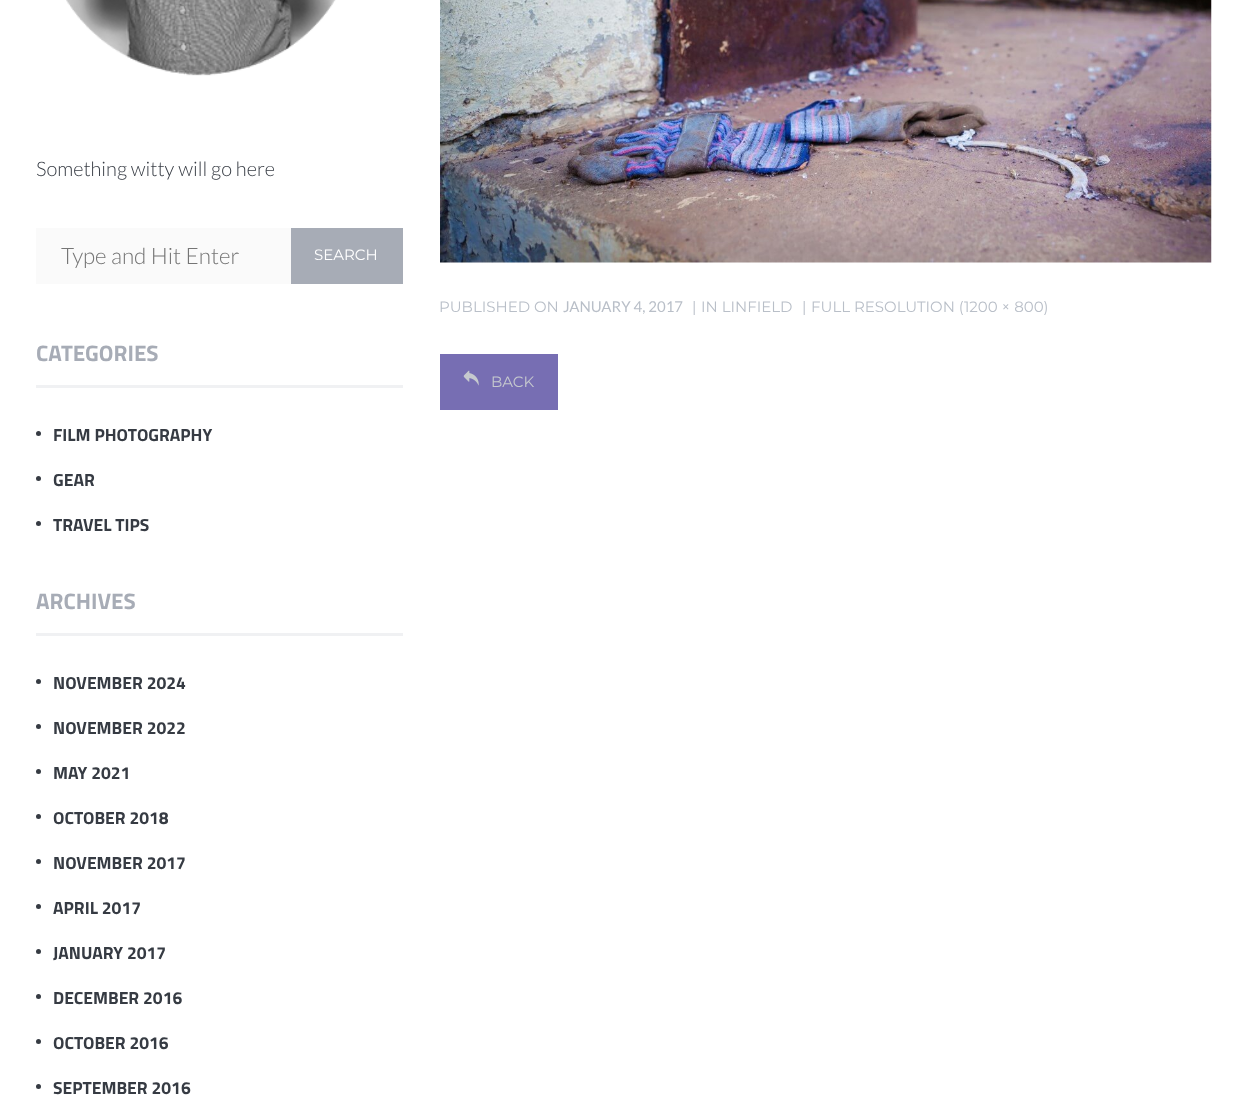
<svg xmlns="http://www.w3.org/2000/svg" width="1246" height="1110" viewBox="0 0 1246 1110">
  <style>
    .t1 { font: 300 20px Lato; fill: #363b43; }
    .t2 { font: 300 22.5px Lato; fill: #757575; }
    .t3 { font: 100 15px Montserrat; fill: #fff; }
    .t4 { font: bold 22.5px Titillium Web; fill: #a7acb6; }
    .t5 { font: bold 17.5px Titillium Web; fill: #363b43; }
    .t6 { font: 100 15px Montserrat; fill: #b9bfc8; }
    .t7 { font: 15px Lato; fill: #b9bfc8; }
    .t8 { font: 100 15px Montserrat; fill: #c6c9ce; }
  </style>
  <rect width="100%" height="100%" fill="#fff"/>
  <image x="66" y="0" width="270" height="76" href="images/1.png"/>
  <text x="36" y="176" class="t1">Something witty will go here</text>
  <rect x="36" y="228" width="255" height="56" fill="#fafafa"/>
  <text x="61" y="264" class="t2">Type and Hit Enter</text>
  <rect x="291" y="228" width="112" height="56" fill="#a7acb6"/>
  <text x="314" y="260" class="t3">SEARCH</text>
  <rect x="36" y="385" width="367" height="3" fill="#f0f1f3"/>
  <text x="36" y="361" class="t4">CATEGORIES</text>
  <circle cx="38.5" cy="433.5" r="2.5" fill="#363b43"/>
  <text x="53" y="441" class="t5">FILM PHOTOGRAPHY</text>
  <circle cx="38.5" cy="478.5" r="2.5" fill="#363b43"/>
  <text x="53" y="486" class="t5">GEAR</text>
  <circle cx="38.5" cy="523.5" r="2.5" fill="#363b43"/>
  <text x="53" y="531" class="t5">TRAVEL TIPS</text>
  <rect x="36" y="633" width="367" height="3" fill="#f0f1f3"/>
  <text x="36" y="609" class="t4">ARCHIVES</text>
  <circle cx="38.5" cy="681.5" r="2.5" fill="#363b43"/>
  <text x="53" y="689" class="t5">NOVEMBER 2024</text>
  <circle cx="38.5" cy="726.5" r="2.5" fill="#363b43"/>
  <text x="53" y="734" class="t5">NOVEMBER 2022</text>
  <circle cx="38.5" cy="771.5" r="2.5" fill="#363b43"/>
  <text x="53" y="779" class="t5">MAY 2021</text>
  <circle cx="38.5" cy="816.5" r="2.5" fill="#363b43"/>
  <text x="53" y="824" class="t5">OCTOBER 2018</text>
  <circle cx="38.5" cy="861.5" r="2.5" fill="#363b43"/>
  <text x="53" y="869" class="t5">NOVEMBER 2017</text>
  <circle cx="38.5" cy="906.5" r="2.5" fill="#363b43"/>
  <text x="53" y="914" class="t5">APRIL 2017</text>
  <circle cx="38.5" cy="951.5" r="2.5" fill="#363b43"/>
  <text x="53" y="959" class="t5">JANUARY 2017</text>
  <circle cx="38.5" cy="996.5" r="2.5" fill="#363b43"/>
  <text x="53" y="1004" class="t5">DECEMBER 2016</text>
  <circle cx="38.5" cy="1041.5" r="2.5" fill="#363b43"/>
  <text x="53" y="1049" class="t5">OCTOBER 2016</text>
  <circle cx="38.5" cy="1086.5" r="2.5" fill="#363b43"/>
  <text x="53" y="1094" class="t5">SEPTEMBER 2016</text>
  <image x="440" y="0" width="772" height="263" href="images/2.png"/>
  <text x="439" y="312" class="t6">PUBLISHED ON</text>
  <text x="563" y="312" class="t7">JANUARY 4, 2017</text>
  <text x="692" y="312" class="t6">|</text>
  <text x="701" y="312" class="t6">IN LINFIELD</text>
  <text x="802" y="312" class="t6">|</text>
  <text x="811" y="312" class="t6">FULL RESOLUTION (1200 × 800)</text>
  <rect x="440" y="354" width="118" height="56" fill="#776eb3"/>
  <image x="463" y="370" width="16" height="16" href="images/3.png"/>
  <text x="491" y="387" class="t8">BACK</text>
</svg>
